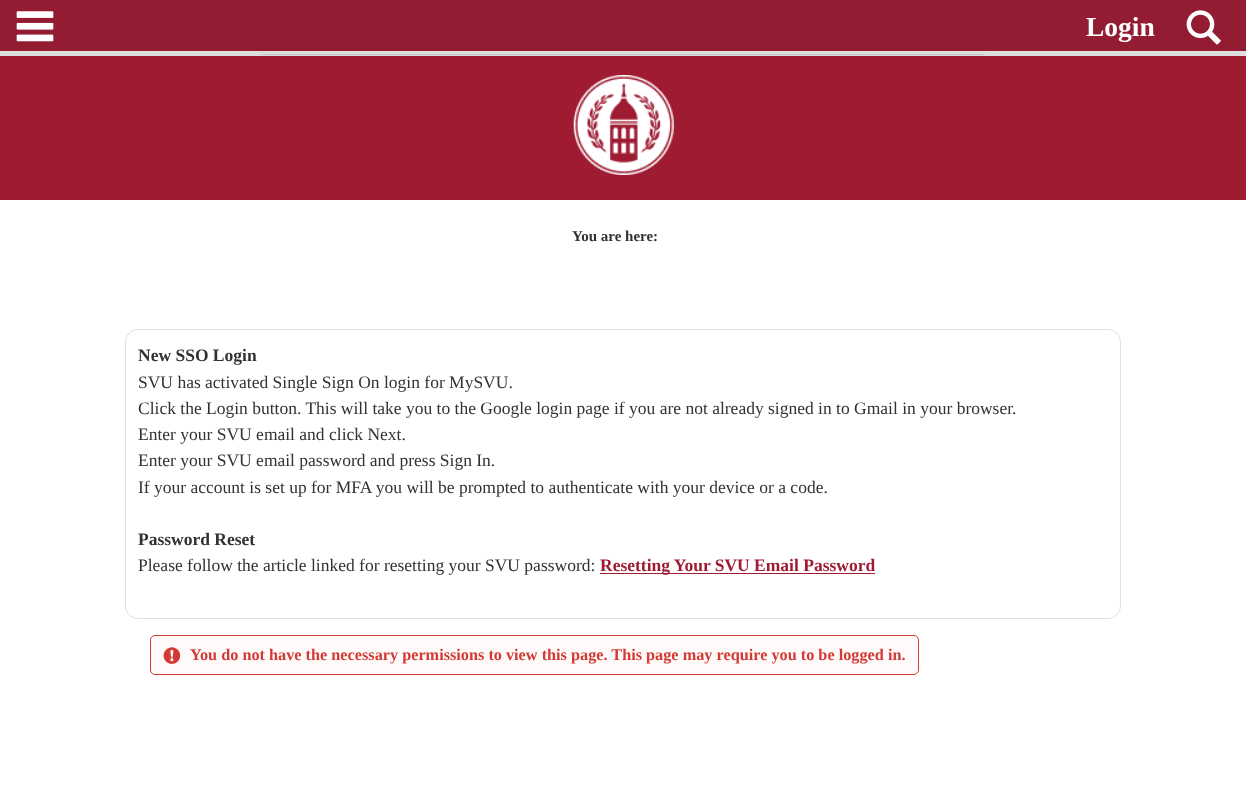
<svg xmlns="http://www.w3.org/2000/svg" width="1246" height="806" viewBox="0 0 1246 806">
  <style>
    .t1 { font: bold 27.5px Liberation Serif; fill: #fff; }
    .t2 { font: bold 15px Liberation Serif; fill: #323232; }
    .t3 { font: bold 17.5px Liberation Serif; fill: #323232; }
    .t4 { font: 17.5px Liberation Serif; fill: #323232; }
    .t5 { font: bold 17.5px Liberation Serif; fill: #9e1b32; }
    .t6 { font: bold 16.25px Liberation Serif; fill: #d33a35; }
  </style>
  <rect width="100%" height="100%" fill="#fff"/>
  <rect x="0" y="0" width="1246" height="51" fill="#931b32"/>
  <rect x="0" y="51" width="1246" height="5" fill="#dedede"/>
  <rect x="0" y="56" width="1246" height="144" fill="#9e1b32"/>
  <image x="16" y="11" width="38" height="31" href="images/1.png"/>
  <text x="1086" y="36" class="t1">Login</text>
  <image x="1186" y="10" width="35" height="35" href="images/2.png"/>
  <rect x="261" y="54" width="724" height="1" fill="#c5c5c5"/>
  <image x="573" y="75" width="101" height="100" href="images/3.png"/>
  <text x="572" y="241" class="t2">You are here:</text>
  <rect x="125.5" y="329.5" width="995" height="289" rx="12.5" fill="none" stroke="#e0e0e0"/>
  <text x="138" y="361" class="t3">New SSO Login</text>
  <text x="138" y="388" class="t4">SVU has activated Single Sign On login for MySVU.</text>
  <text x="138" y="414" class="t4">Click the Login button. This will take you to the Google login page if you are not already signed in to Gmail in your browser.</text>
  <text x="138" y="440" class="t4">Enter your SVU email and click Next.</text>
  <text x="138" y="466" class="t4">Enter your SVU email password and press Sign In.</text>
  <text x="138" y="493" class="t4">If your account is set up for MFA you will be prompted to authenticate with your device or a code.</text>
  <text x="138" y="545" class="t3">Password Reset</text>
  <text x="138" y="571" class="t4">Please follow the article linked for resetting your SVU password:</text>
  <rect x="600" y="573" width="275" height="1" fill="#9e1b32"/>
  <text x="600" y="571" class="t5">Resetting Your SVU Email Password</text>
  <rect x="150.5" y="635.5" width="768" height="39" rx="4.5" fill="#fefafa" stroke="#d33a35"/>
  <image x="163" y="647" width="18" height="17" href="images/4.png"/>
  <text x="190" y="660" class="t6">You do not have the necessary permissions to view this page. This page may require you to be logged in.</text>
</svg>
